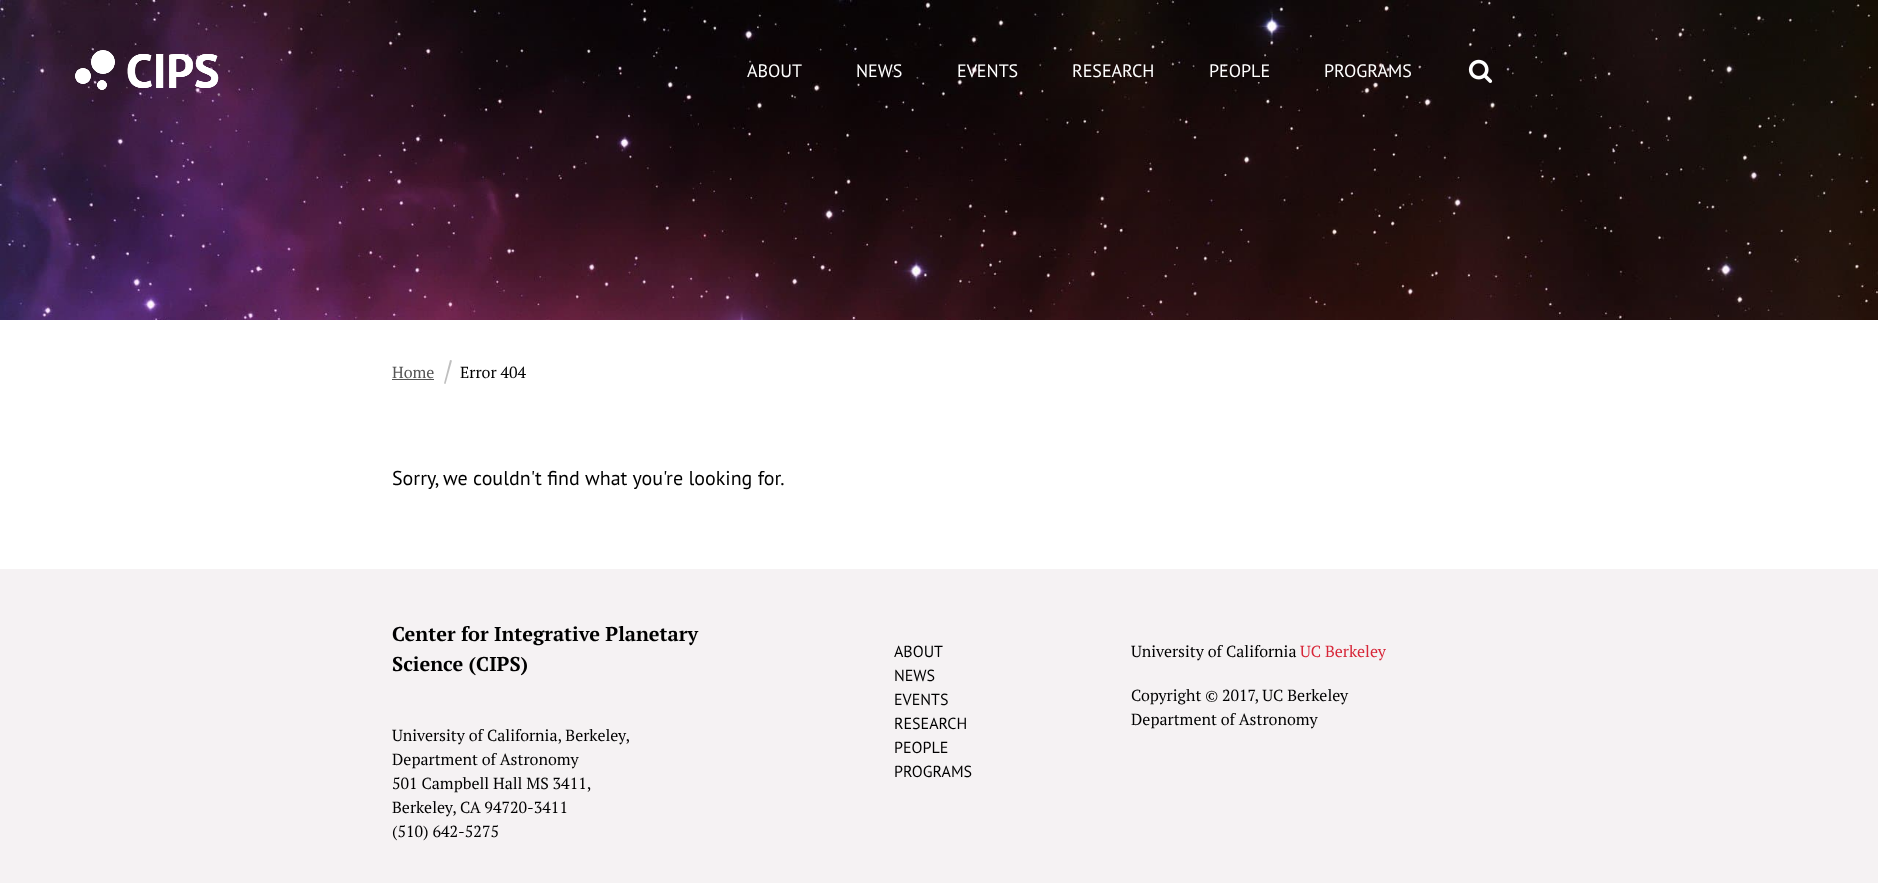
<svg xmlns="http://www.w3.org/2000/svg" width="1878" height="892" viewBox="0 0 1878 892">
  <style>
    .t1 { font: 18px PT Sans; fill: #fff; }
    .t2 { font: 16px PT Serif; fill: #555; }
    .t3 { font: 16px PT Serif; fill: #000; }
    .t4 { font: 20px PT Sans; fill: #000; }
    .t5 { font: bold 20px PT Serif; fill: #000; }
    .t6 { font: 16px PT Sans; fill: #000; }
    .t7 { font: 16px PT Serif; fill: #d72638; }
  </style>
  <rect width="100%" height="100%" fill="#fff"/>
  <image x="0" y="0" width="1878" height="320" href="images/1.png"/>
  <image x="71" y="45" width="151" height="54" href="images/2.png"/>
  <text x="747" y="77" class="t1">ABOUT</text>
  <text x="856" y="77" class="t1">NEWS</text>
  <text x="957" y="77" class="t1">EVENTS</text>
  <text x="1072" y="77" class="t1">RESEARCH</text>
  <text x="1209" y="77" class="t1">PEOPLE</text>
  <text x="1324" y="77" class="t1">PROGRAMS</text>
  <image x="1468" y="59" width="25" height="24" href="images/3.png"/>
  <text x="392" y="378" class="t2">Home</text>
  <rect x="392" y="379" width="42" height="1" fill="#555"/>
  <path d="M450 360L452 360.5L445.5 384L444 383.5Z" fill="#bfbfbf"/>
  <text x="460" y="378" class="t3">Error 404</text>
  <text x="392" y="485" class="t4">Sorry, we couldn't find what you're looking for.</text>
  <rect x="0" y="569" width="1878" height="314" fill="#f5f2f3"/>
  <text x="392" y="641" class="t5">Center for Integrative Planetary</text>
  <text x="392" y="671" class="t5">Science (CIPS)</text>
  <text x="392" y="741" class="t3">University of California, Berkeley,</text>
  <text x="392" y="765" class="t3">Department of Astronomy</text>
  <text x="392" y="789" class="t3">501 Campbell Hall MS 3411,</text>
  <text x="392" y="813" class="t3">Berkeley, CA 94720-3411</text>
  <text x="392" y="837" class="t3">(510) 642-5275</text>
  <text x="894" y="657" class="t6">ABOUT</text>
  <text x="894" y="681" class="t6">NEWS</text>
  <text x="894" y="705" class="t6">EVENTS</text>
  <text x="894" y="729" class="t6">RESEARCH</text>
  <text x="894" y="753" class="t6">PEOPLE</text>
  <text x="894" y="777" class="t6">PROGRAMS</text>
  <text x="1131" y="657" class="t3">University of California</text>
  <text x="1300" y="657" class="t7">UC Berkeley</text>
  <text x="1131" y="701" class="t3">Copyright © 2017, UC Berkeley</text>
  <text x="1131" y="725" class="t3">Department of Astronomy</text>
</svg>
